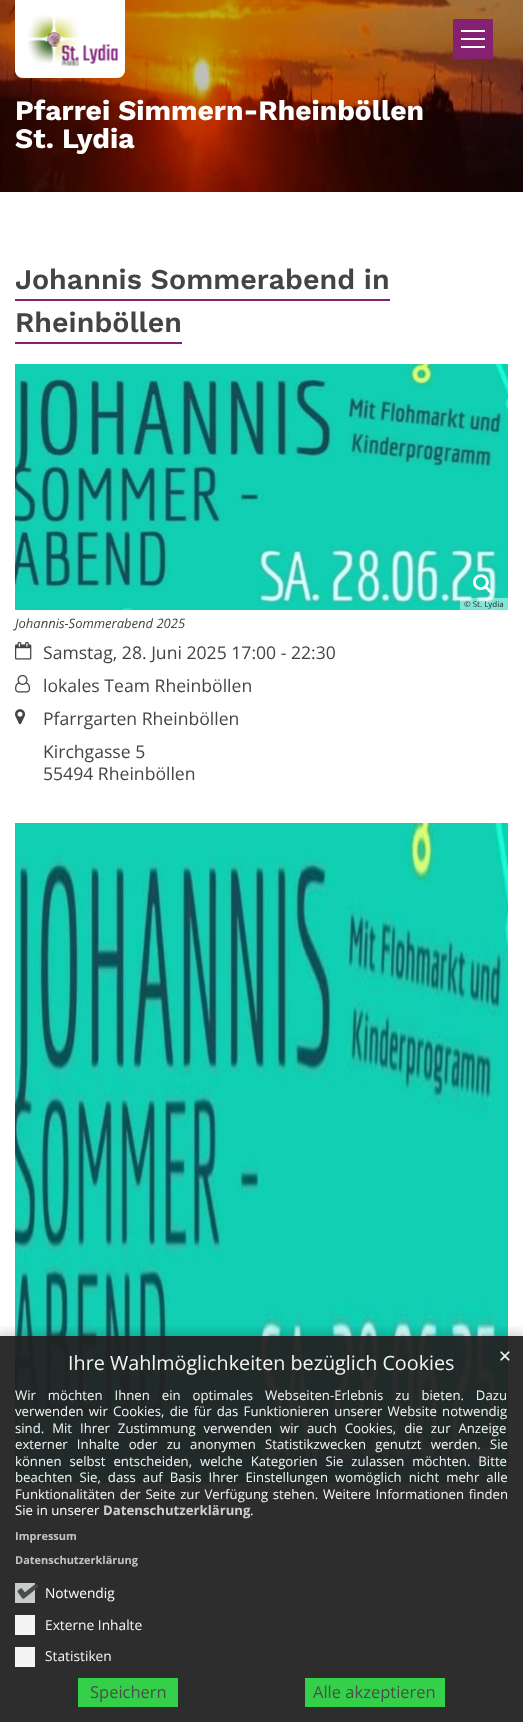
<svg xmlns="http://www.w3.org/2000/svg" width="523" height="1722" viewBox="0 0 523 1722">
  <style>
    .t1 { font: bold 28.2px Work Sans; fill: #fff; }
    .t2 { font: 600 28.6px Work Sans; fill: #444; }
    .t3 { font: 8px Open Sans; fill: #1b2e2b; }
    .t4 { font: italic 13px Open Sans; fill: #444; }
    .t5 { font: 17.6px Open Sans; fill: #444; }
    .t6 { font: 19.75px Open Sans; fill: #f4f4f4; }
    .t7 { font: 16.5px DejaVu Sans; fill: #f4f4f4; }
    .t8 { font: 13.2px Open Sans; fill: #f4f4f4; }
    .t9 { font: 13.2px Open Sans; fill: #fff; }
    .t10 { font: bold 13.2px Open Sans; fill: #cfcfcf; }
    .t11 { font: bold 11px Open Sans; fill: #c4c4c4; }
    .t12 { font: 13.75px Open Sans; fill: #fff; }
    .t13 { font: 13.75px Open Sans; fill: #f4f4f4; }
    .t14 { font: 16.5px Open Sans; fill: #4d4d4d; }
  </style>
  <defs>
    <clipPath id="clip1"><rect x="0" y="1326" width="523" height="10"/></clipPath>
  </defs>
  <rect width="100%" height="100%" fill="#fff"/>
  <image x="0" y="0" width="523" height="192" href="images/2.png"/>
  <rect x="453" y="19" width="40" height="40" fill="#862070"/>
  <rect x="461" y="38" width="24" height="2" fill="#fff"/>
  <rect x="461" y="30" width="24" height="2" fill="#fff"/>
  <rect x="461" y="46" width="24" height="2" fill="#fff"/>
  <path d="M15 0H125V70C125 74.5 121.5 78 117 78H23C18.5 78 15 74.5 15 70Z" fill="#fff"/>
  <image x="27" y="15" width="91" height="52" href="images/1.png"/>
  <text x="15" y="120" class="t1">Pfarrei Simmern-Rheinböllen</text>
  <text x="15" y="148" class="t1">St. Lydia</text>
  <text x="15" y="289" class="t2">Johannis Sommerabend in</text>
  <rect x="15" y="299" width="375" height="2" fill="#862070"/>
  <text x="15" y="332" class="t2">Rheinböllen</text>
  <rect x="15" y="342" width="167" height="2" fill="#862070"/>
  <image x="15" y="364" width="493" height="246" href="images/3.png"/>
  <image x="473" y="574" width="19" height="19" href="images/4.png"/>
  <rect x="460" y="598" width="48" height="12" fill="#ffffff7a"/>
  <text x="464" y="607" class="t3">© St. Lydia</text>
  <text x="15" y="628" class="t4">Johannis-Sommerabend 2025</text>
  <image x="15" y="641" width="17" height="19" href="images/5.png"/>
  <text x="43" y="659" class="t5">Samstag, 28. Juni 2025 17:00 - 22:30</text>
  <image x="15" y="674" width="16" height="19" href="images/6.png"/>
  <text x="43" y="692" class="t5">lokales Team Rheinböllen</text>
  <image x="15" y="709" width="11" height="16" href="images/7.png"/>
  <text x="43" y="725" class="t5">Pfarrgarten Rheinböllen</text>
  <text x="43" y="758" class="t5">Kirchgasse 5</text>
  <text x="43" y="780" class="t5">55494 Rheinböllen</text>
  <image x="15" y="823" width="493" height="660" href="images/8.png"/>
  <image x="473" y="1447" width="19" height="19" href="images/9.png"/>
  <rect x="460" y="1471" width="48" height="12" fill="#ffffff7a"/>
  <g clip-path="url(#clip1)">
    <rect x="-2" y="1331" width="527" height="390" fill="#00000024" filter="blur(5px)"/>
  </g>
  <rect x="0" y="1336" width="523" height="386" fill="#222222f2"/>
  <text x="68" y="1370" class="t6">Ihre Wahlmöglichkeiten bezüglich Cookies</text>
  <text x="498" y="1362" class="t7">✕</text>
  <text x="15" y="1400" word-spacing="8.5" class="t8">Wir möchten Ihnen ein optimales Webseiten-Erlebnis zu bieten. Dazu</text>
  <text x="15" y="1416" word-spacing="1.75" class="t8">verwenden wir Cookies, die für das Funktionieren unserer Website notwendig</text>
  <text x="15" y="1433" word-spacing="4.5" class="t8">sind. Mit Ihrer Zustimmung verwenden wir auch Cookies, die zur Anzeige</text>
  <text x="15" y="1449" word-spacing="5.75" class="t8">externer Inhalte oder zu anonymen Statistikzwecken genutzt werden. Sie</text>
  <text x="15" y="1466" word-spacing="4.5" class="t8">können selbst entscheiden, welche Kategorien Sie zulassen möchten. Bitte</text>
  <text x="15" y="1482" word-spacing="3.6" class="t8">beachten Sie, dass auf Basis Ihrer Einstellungen womöglich nicht mehr alle</text>
  <text x="15" y="1499" word-spacing="1.25" class="t8">Funktionalitäten der Seite zur Verfügung stehen. Weitere Informationen finden</text>
  <text x="15" y="1515" class="t9">Sie in unserer</text>
  <text x="103" y="1515" class="t10">Datenschutzerklärung</text>
  <text x="250" y="1515" class="t9">.</text>
  <text x="15" y="1540" class="t11">Impressum</text>
  <text x="15" y="1564" class="t11">Datenschutzerklärung</text>
  <rect x="15" y="1583" width="20" height="20" fill="#d1d3d4f2"/>
  <image x="17" y="1583" width="22" height="16" href="images/10.png"/>
  <text x="45" y="1598" class="t12">Notwendig</text>
  <rect x="15" y="1615" width="20" height="20" fill="#fffffff2"/>
  <text x="45" y="1630" class="t13">Externe Inhalte</text>
  <rect x="15" y="1647" width="20" height="20" fill="#fffffff2"/>
  <text x="45" y="1661" class="t13">Statistiken</text>
  <rect x="78" y="1678" width="100" height="29" fill="#34d049"/>
  <text x="90" y="1698" class="t14">Speichern</text>
  <rect x="305" y="1678" width="140" height="29" fill="#34d049"/>
  <text x="313" y="1698" class="t14">Alle akzeptieren</text>
</svg>
